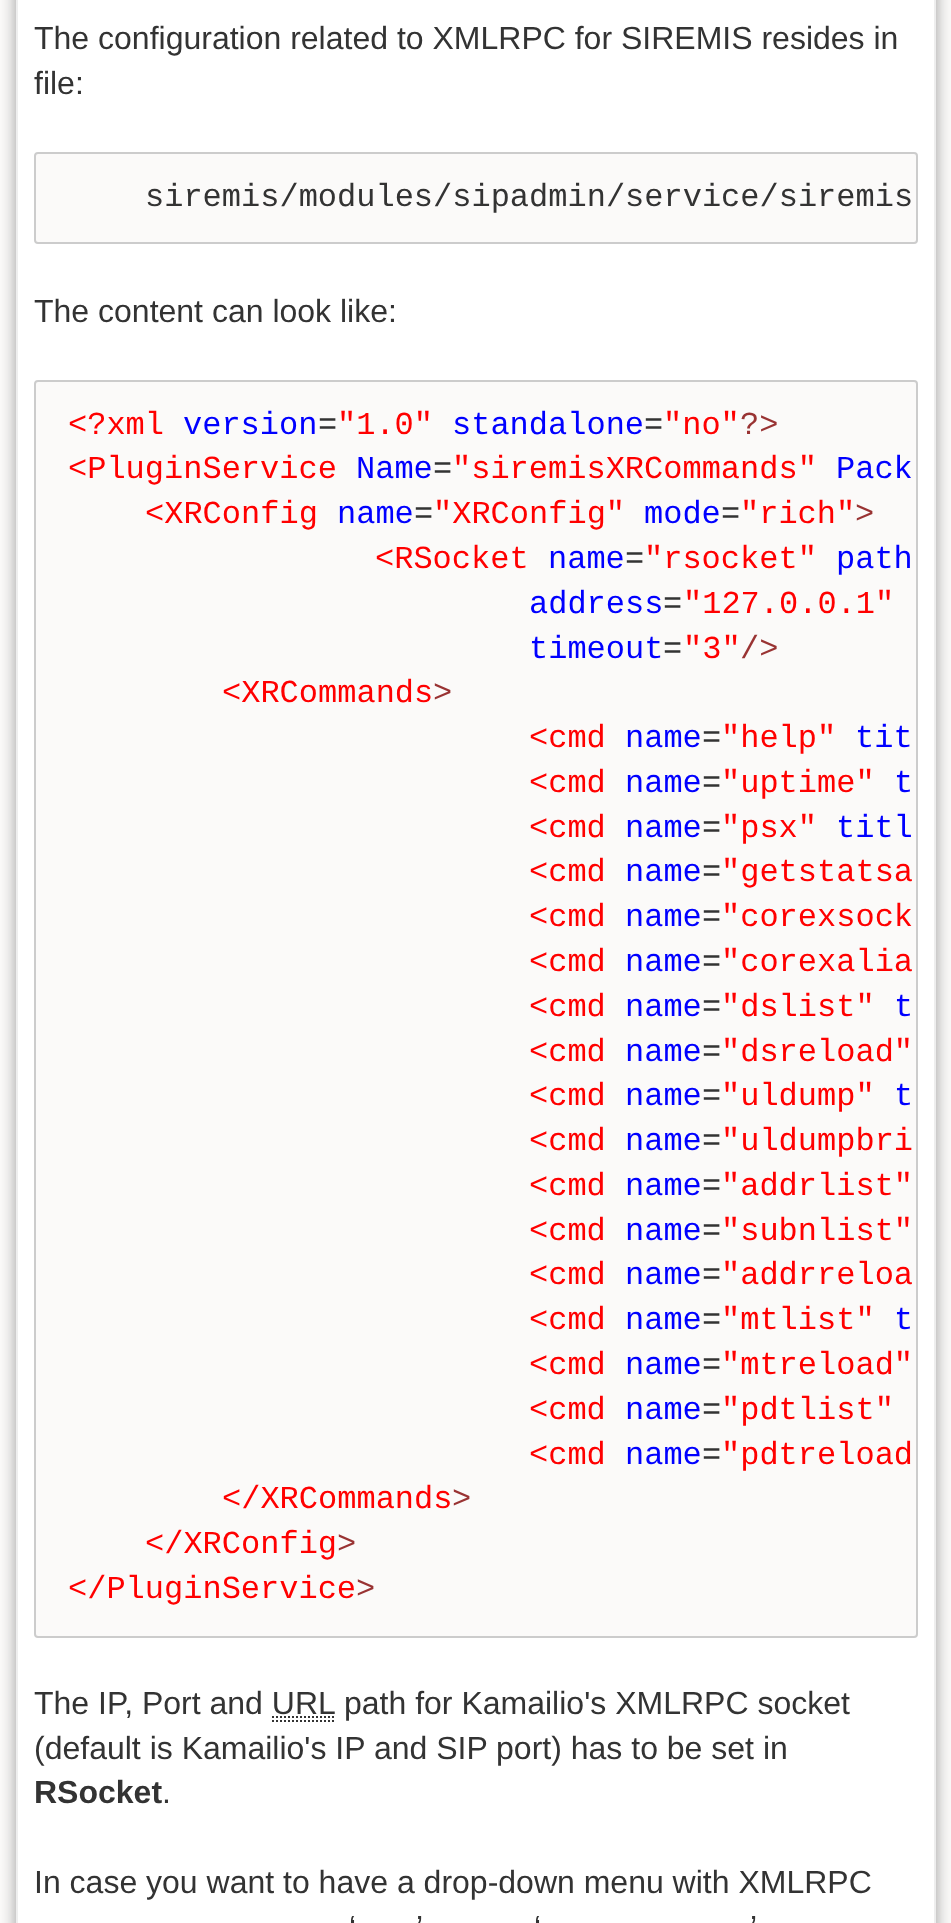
<svg xmlns="http://www.w3.org/2000/svg" width="951" height="1923" viewBox="0 0 951 1923">
  <style>
    .t1 { font: 32px Liberation Sans; fill: #333; }
    .t2 { font: 32px Liberation Mono; fill: #333; }
    .t3 { font: 32px Liberation Mono; fill: #f00; }
    .t4 { font: 32px Liberation Mono; fill: #00f; }
    .t5 { font: 32px Liberation Mono; fill: #933; }
    .t6 { font: bold 32px Liberation Sans; fill: #333; }
  </style>
  <rect width="100%" height="100%" fill="#fbfaf9"/>
  <rect x="16" y="-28" width="920" height="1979" rx="4" fill="#999" filter="blur(8px)"/>
  <rect x="17" y="-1" width="918" height="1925" fill="#fff" stroke="#eee" stroke-width="2"/>
  <text x="34" y="49" class="t1">The configuration related to XMLRPC for SIREMIS resides in</text>
  <text x="34" y="94" class="t1">file:</text>
  <rect x="35" y="153" width="882" height="90" rx="3" fill="#fbfaf9" stroke="#ccc" stroke-width="2"/>
  <text x="145" y="206" class="t2">siremis/modules/sipadmin/service/siremis</text>
  <text x="34" y="322" class="t1">The content can look like:</text>
  <rect x="35" y="381" width="882" height="1256" rx="3" fill="#fbfaf9" stroke="#ccc" stroke-width="2"/>
  <text x="68" y="434" class="t3">&lt;?xml</text>
  <text x="183" y="434" class="t4">version</text>
  <text x="318" y="434" class="t2">=</text>
  <text x="337" y="434" class="t3">"1.0"</text>
  <text x="452" y="434" class="t4">standalone</text>
  <text x="644" y="434" class="t2">=</text>
  <text x="663" y="434" class="t3">"no"</text>
  <text x="740" y="434" class="t5">?&gt;</text>
  <text x="68" y="478" class="t3">&lt;PluginService</text>
  <text x="356" y="478" class="t4">Name</text>
  <text x="433" y="478" class="t2">=</text>
  <text x="452" y="478" class="t3">"siremisXRCommands"</text>
  <text x="836" y="478" class="t4">Pack</text>
  <text x="145" y="523" class="t3">&lt;XRConfig</text>
  <text x="337" y="523" class="t4">name</text>
  <text x="414" y="523" class="t2">=</text>
  <text x="433" y="523" class="t3">"XRConfig"</text>
  <text x="644" y="523" class="t4">mode</text>
  <text x="721" y="523" class="t2">=</text>
  <text x="740" y="523" class="t3">"rich"</text>
  <text x="855" y="523" class="t5">&gt;</text>
  <text x="375" y="568" class="t3">&lt;RSocket</text>
  <text x="548" y="568" class="t4">name</text>
  <text x="625" y="568" class="t2">=</text>
  <text x="644" y="568" class="t3">"rsocket"</text>
  <text x="836" y="568" class="t4">path</text>
  <text x="529" y="613" class="t4">address</text>
  <text x="663" y="613" class="t2">=</text>
  <text x="683" y="613" class="t3">"127.0.0.1"</text>
  <text x="529" y="658" class="t4">timeout</text>
  <text x="663" y="658" class="t2">=</text>
  <text x="683" y="658" class="t3">"3"</text>
  <text x="740" y="658" class="t5">/&gt;</text>
  <text x="222" y="702" class="t3">&lt;XRCommands</text>
  <text x="433" y="702" class="t5">&gt;</text>
  <text x="529" y="747" class="t3">&lt;cmd</text>
  <text x="625" y="747" class="t4">name</text>
  <text x="702" y="747" class="t2">=</text>
  <text x="721" y="747" class="t3">"help"</text>
  <text x="855" y="747" class="t4">tit</text>
  <text x="529" y="792" class="t3">&lt;cmd</text>
  <text x="625" y="792" class="t4">name</text>
  <text x="702" y="792" class="t2">=</text>
  <text x="721" y="792" class="t3">"uptime"</text>
  <text x="894" y="792" class="t4">t</text>
  <text x="529" y="837" class="t3">&lt;cmd</text>
  <text x="625" y="837" class="t4">name</text>
  <text x="702" y="837" class="t2">=</text>
  <text x="721" y="837" class="t3">"psx"</text>
  <text x="836" y="837" class="t4">titl</text>
  <text x="529" y="881" class="t3">&lt;cmd</text>
  <text x="625" y="881" class="t4">name</text>
  <text x="702" y="881" class="t2">=</text>
  <text x="721" y="881" class="t3">"getstatsa</text>
  <text x="529" y="926" class="t3">&lt;cmd</text>
  <text x="625" y="926" class="t4">name</text>
  <text x="702" y="926" class="t2">=</text>
  <text x="721" y="926" class="t3">"corexsock</text>
  <text x="529" y="971" class="t3">&lt;cmd</text>
  <text x="625" y="971" class="t4">name</text>
  <text x="702" y="971" class="t2">=</text>
  <text x="721" y="971" class="t3">"corexalia</text>
  <text x="529" y="1016" class="t3">&lt;cmd</text>
  <text x="625" y="1016" class="t4">name</text>
  <text x="702" y="1016" class="t2">=</text>
  <text x="721" y="1016" class="t3">"dslist"</text>
  <text x="894" y="1016" class="t4">t</text>
  <text x="529" y="1061" class="t3">&lt;cmd</text>
  <text x="625" y="1061" class="t4">name</text>
  <text x="702" y="1061" class="t2">=</text>
  <text x="721" y="1061" class="t3">"dsreload"</text>
  <text x="529" y="1105" class="t3">&lt;cmd</text>
  <text x="625" y="1105" class="t4">name</text>
  <text x="702" y="1105" class="t2">=</text>
  <text x="721" y="1105" class="t3">"uldump"</text>
  <text x="894" y="1105" class="t4">t</text>
  <text x="529" y="1150" class="t3">&lt;cmd</text>
  <text x="625" y="1150" class="t4">name</text>
  <text x="702" y="1150" class="t2">=</text>
  <text x="721" y="1150" class="t3">"uldumpbri</text>
  <text x="529" y="1195" class="t3">&lt;cmd</text>
  <text x="625" y="1195" class="t4">name</text>
  <text x="702" y="1195" class="t2">=</text>
  <text x="721" y="1195" class="t3">"addrlist"</text>
  <text x="529" y="1240" class="t3">&lt;cmd</text>
  <text x="625" y="1240" class="t4">name</text>
  <text x="702" y="1240" class="t2">=</text>
  <text x="721" y="1240" class="t3">"subnlist"</text>
  <text x="529" y="1284" class="t3">&lt;cmd</text>
  <text x="625" y="1284" class="t4">name</text>
  <text x="702" y="1284" class="t2">=</text>
  <text x="721" y="1284" class="t3">"addrreloa</text>
  <text x="529" y="1329" class="t3">&lt;cmd</text>
  <text x="625" y="1329" class="t4">name</text>
  <text x="702" y="1329" class="t2">=</text>
  <text x="721" y="1329" class="t3">"mtlist"</text>
  <text x="894" y="1329" class="t4">t</text>
  <text x="529" y="1374" class="t3">&lt;cmd</text>
  <text x="625" y="1374" class="t4">name</text>
  <text x="702" y="1374" class="t2">=</text>
  <text x="721" y="1374" class="t3">"mtreload"</text>
  <text x="529" y="1419" class="t3">&lt;cmd</text>
  <text x="625" y="1419" class="t4">name</text>
  <text x="702" y="1419" class="t2">=</text>
  <text x="721" y="1419" class="t3">"pdtlist"</text>
  <text x="529" y="1464" class="t3">&lt;cmd</text>
  <text x="625" y="1464" class="t4">name</text>
  <text x="702" y="1464" class="t2">=</text>
  <text x="721" y="1464" class="t3">"pdtreload</text>
  <text x="222" y="1508" class="t3">&lt;/XRCommands</text>
  <text x="452" y="1508" class="t5">&gt;</text>
  <text x="145" y="1553" class="t3">&lt;/XRConfig</text>
  <text x="337" y="1553" class="t5">&gt;</text>
  <text x="68" y="1598" class="t3">&lt;/PluginService</text>
  <text x="356" y="1598" class="t5">&gt;</text>
  <text x="34" y="1714" class="t1">The IP, Port and URL</text>
  <text x="344" y="1714" class="t1">path for Kamailio's XMLRPC socket</text>
  <path d="M272 1721H334M272 1717H334.5" fill="none" stroke="#333" stroke-width="2" stroke-dasharray="2 2"/>
  <text x="34" y="1759" class="t1">(default is Kamailio's IP and SIP port) has to be set in</text>
  <text x="34" y="1803" class="t6">RSocket</text>
  <text x="162" y="1803" class="t1">.</text>
  <text x="34" y="1893" class="t1">In case you want to have a drop-down menu with XMLRPC</text>
  <text x="349" y="1938" class="t1">‘</text>
  <text x="416" y="1938" class="t1">’</text>
  <text x="534" y="1938" class="t1">‘</text>
  <text x="750" y="1938" class="t1">’</text>
</svg>
